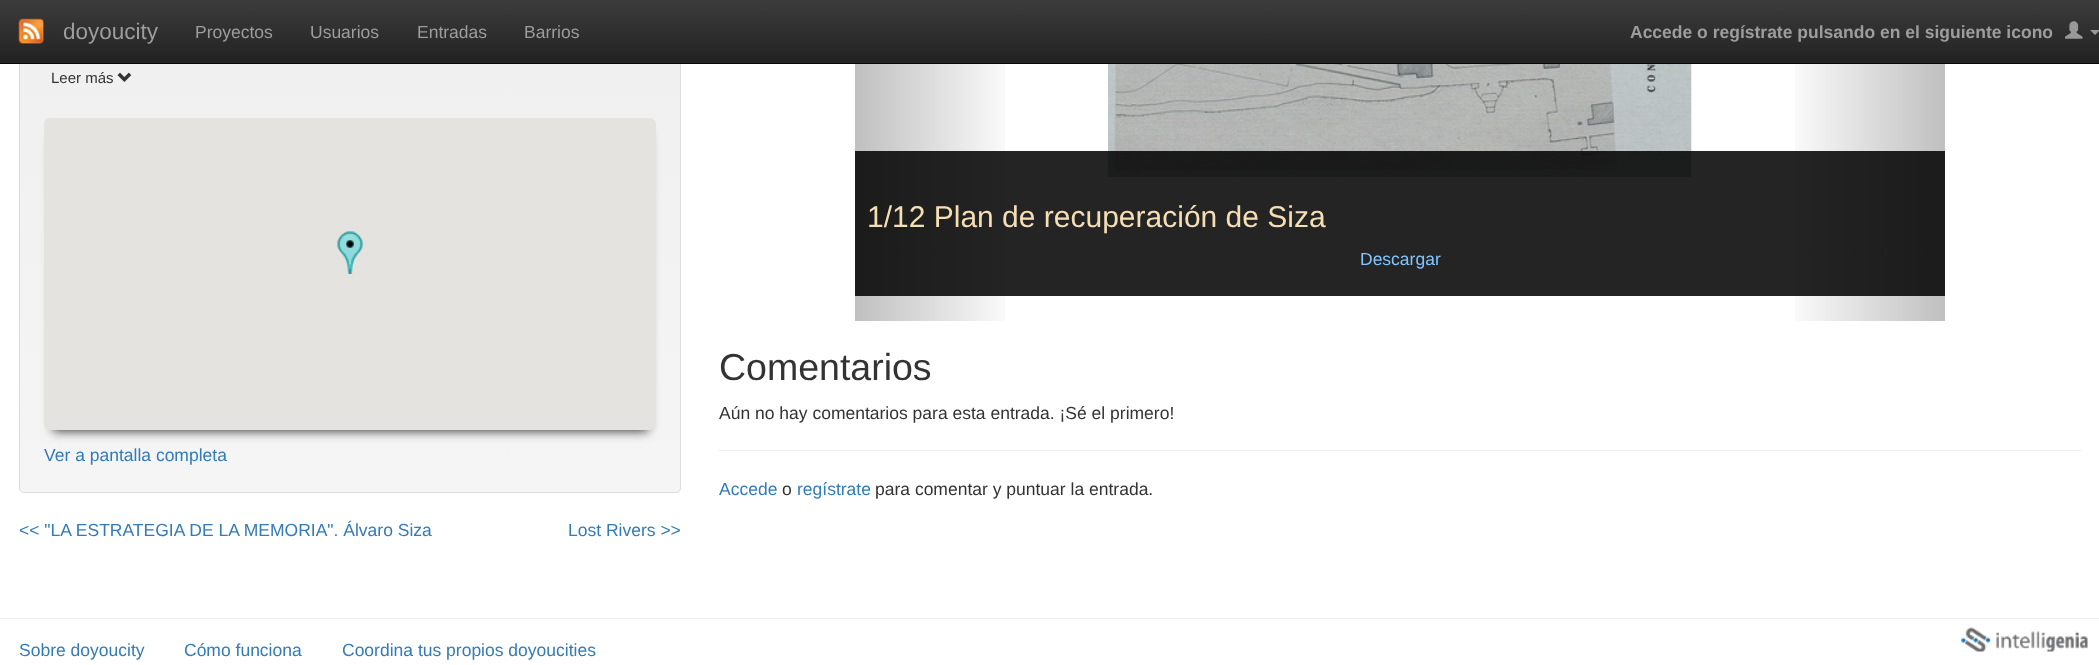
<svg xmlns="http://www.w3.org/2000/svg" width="2099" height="665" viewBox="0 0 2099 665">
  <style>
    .t1 { font: 22.5px Liberation Sans; fill: #9d9d9d; }
    .t2 { font: 17.5px Liberation Sans; fill: #9d9d9d; }
    .t3 { font: bold 17.5px Liberation Sans; fill: #9d9d9d; }
    .t4 { font: 15px Liberation Sans; fill: #333; }
    .t5 { font: 17.5px Liberation Sans; fill: #337ab7; }
    .t6 { font: 30px Liberation Sans; fill: #f5deb3; }
    .t7 { font: 17.5px Liberation Sans; fill: #83c6ff; }
    .t8 { font: 37.5px Liberation Sans; fill: #333; }
    .t9 { font: 17.5px Liberation Sans; fill: #333; }
  </style>
  <defs>
    <clipPath id="clip1"><rect x="19" y="-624" width="662" height="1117" rx="5"/></clipPath>
    <linearGradient id="g1" gradientUnits="userSpaceOnUse" x1="350" y1="-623" x2="350" y2="491"><stop offset="0" stop-color="#e8e8e8"/><stop offset="1" stop-color="#f5f5f5"/></linearGradient>
    <linearGradient id="g2" gradientUnits="userSpaceOnUse" x1="1050" y1="0" x2="1050" y2="63"><stop offset="0" stop-color="#3c3c3c"/><stop offset="1" stop-color="#222"/></linearGradient>
    <linearGradient id="g3" gradientUnits="userSpaceOnUse" x1="855" y1="-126" x2="1019" y2="-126"><stop offset="0" stop-color="#000" stop-opacity="0.25"/><stop offset="1" stop-color="#000" stop-opacity="0"/></linearGradient>
    <linearGradient id="g4" gradientUnits="userSpaceOnUse" x1="1781" y1="-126" x2="1945" y2="-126"><stop offset="0" stop-color="#000" stop-opacity="0"/><stop offset="1" stop-color="#000" stop-opacity="0.25"/></linearGradient>
  </defs>
  <rect width="100%" height="100%" fill="#fff"/>
  <rect x="19" y="-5" width="662" height="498" rx="5" fill="#f5f5f5"/>
  <g clip-path="url(#clip1)">
    <rect x="19" y="64" width="662" height="427" fill="url(#g1)"/>
  </g>
  <rect x="19.5" y="-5.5" width="661" height="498" rx="4.5" fill="none" stroke="#dcdcdc"/>
  <rect x="0" y="0" width="2099" height="63" fill="url(#g2)"/>
  <rect x="0" y="63" width="2099" height="1" fill="#080808"/>
  <image x="18" y="18" width="26" height="26" href="images/1.png"/>
  <text x="63" y="39" class="t1">doyoucity</text>
  <text x="195" y="38" class="t2">Proyectos</text>
  <text x="310" y="38" class="t2">Usuarios</text>
  <text x="417" y="38" class="t2">Entradas</text>
  <text x="524" y="38" class="t2">Barrios</text>
  <text x="1630" y="38" class="t3">Accede o regístrate pulsando en el siguiente icono</text>
  <image x="2065" y="21" width="18" height="18" href="images/2.png"/>
  <path d="M2090 30H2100L2095 35Z" fill="#999"/>
  <text x="51" y="83" class="t4">Leer más</text>
  <image x="117" y="72" width="15" height="10" href="images/3.png"/>
  <rect x="53" y="136" width="595" height="295" fill="#333" filter="blur(5.5px)"/>
  <rect x="44" y="118" width="612" height="312" rx="6" fill="#e5e3df"/>
  <image x="337" y="231" width="26" height="43" href="images/4.png"/>
  <image x="337" y="231" width="26" height="43" href="images/5.png"/>
  <text x="44" y="461" class="t5">Ver a pantalla completa</text>
  <text x="19" y="536" class="t5">&lt;&lt; "LA ESTRATEGIA DE LA MEMORIA". Álvaro Siza</text>
  <text x="568" y="536" class="t5">Lost Rivers &gt;&gt;</text>
  <image x="1108" y="64" width="584" height="113" href="images/6.png"/>
  <rect x="855" y="151" width="1090" height="145" fill="#000000db"/>
  <rect x="855" y="64" width="150" height="257" fill="url(#g3)"/>
  <rect x="1795" y="64" width="150" height="257" fill="url(#g4)"/>
  <text x="867" y="227" class="t6">1/12 Plan de recuperación de Siza</text>
  <text x="1360" y="265" class="t7">Descargar</text>
  <text x="719" y="380" class="t8">Comentarios</text>
  <text x="719" y="419" class="t9">Aún no hay comentarios para esta entrada. ¡Sé el primero!</text>
  <rect x="719" y="450" width="1362" height="1" fill="#eee"/>
  <text x="719" y="495" class="t5">Accede</text>
  <text x="782" y="495" class="t9">o</text>
  <text x="797" y="495" class="t5">regístrate</text>
  <text x="875" y="495" class="t9">para comentar y puntuar la entrada.</text>
  <rect x="0" y="618" width="2099" height="1" fill="#eee"/>
  <text x="19" y="656" class="t5">Sobre doyoucity</text>
  <text x="184" y="656" class="t5">Cómo funciona</text>
  <text x="342" y="656" class="t5">Coordina tus propios doyoucities</text>
  <image x="1961" y="627" width="127" height="25" href="images/7.png"/>
</svg>
